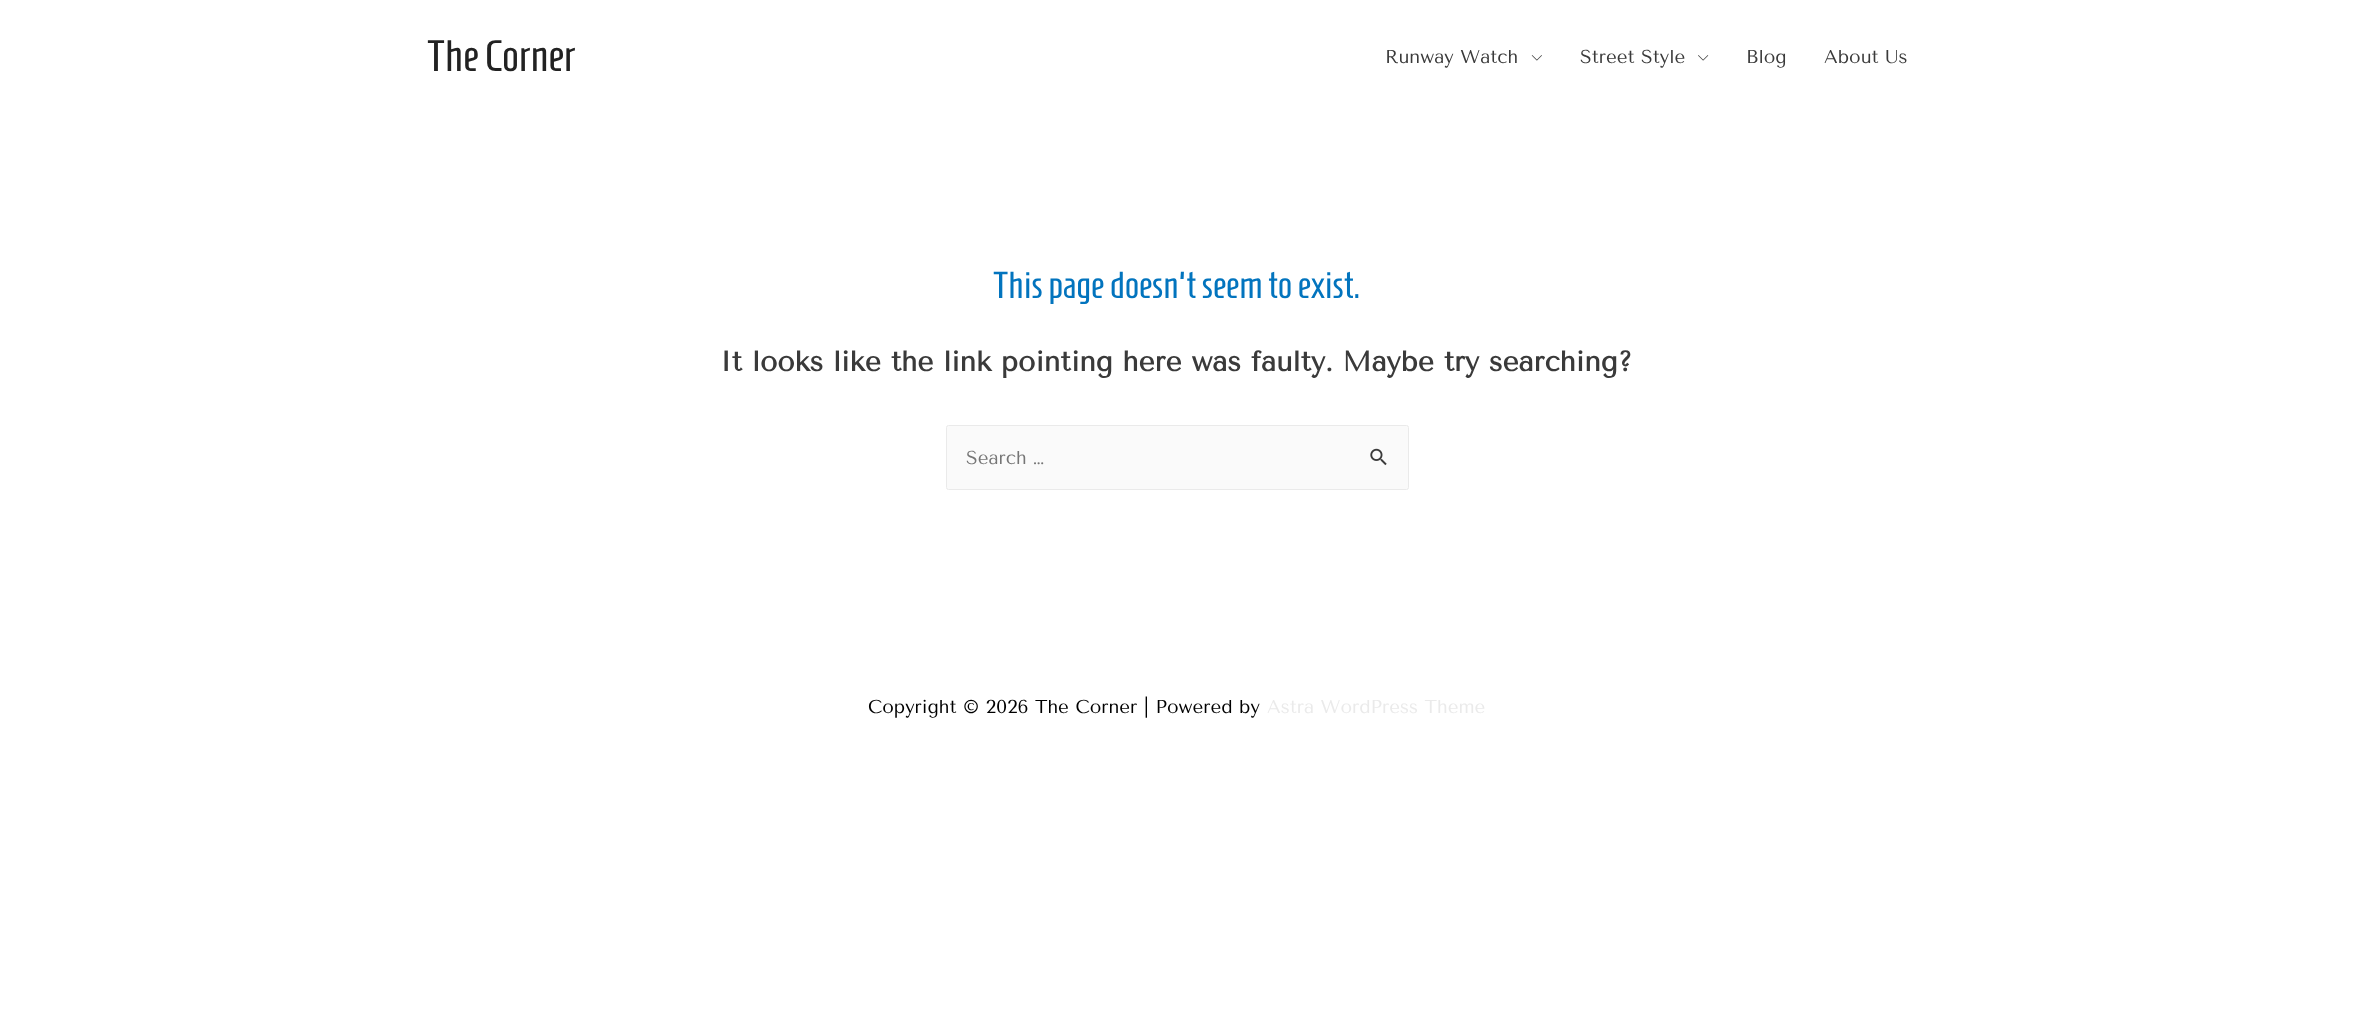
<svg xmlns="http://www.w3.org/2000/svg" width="2353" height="1028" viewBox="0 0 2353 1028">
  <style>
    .t1 { font: 44px Homenaje; fill: #222; }
    .t2 { font: 18.75px Tenor Sans; fill: #3a3a3a; }
    .t3 { font: 37.5px Homenaje; fill: #0274be; }
    .t4 { font: bold 28.1px Tenor Sans; fill: #3a3a3a; }
    .t5 { font: 18.75px Tenor Sans; fill: #757575; }
    .t6 { font: 18.75px Tenor Sans; fill: #000; }
    .t7 { font: 18.75px Tenor Sans; fill: #eaeaea; }
  </style>
  <rect width="100%" height="100%" fill="#fff"/>
  <text x="427" y="71" class="t1">The Corner</text>
  <text x="1385" y="63" class="t2">Runway Watch</text>
  <image x="1531" y="55" width="11" height="6" href="images/1.png"/>
  <text x="1580" y="63" class="t2">Street Style</text>
  <image x="1698" y="55" width="11" height="6" href="images/2.png"/>
  <text x="1746" y="63" class="t2">Blog</text>
  <text x="1824" y="63" class="t2">About Us</text>
  <text x="993" y="298" class="t3">This page doesn't seem to exist.</text>
  <text x="720" y="371" class="t4">It looks like the link pointing here was faulty. Maybe try searching?</text>
  <rect x="946.5" y="425.5" width="462" height="64" rx="2" fill="#fafafa" stroke="#eaeaea"/>
  <text x="966" y="464" class="t5">Search …</text>
  <image x="1370" y="448" width="17" height="18" href="images/3.png"/>
  <text x="868" y="713" class="t6">Copyright © 2026 The Corner | Powered by</text>
  <text x="1267" y="713" class="t7">Astra WordPress Theme</text>
</svg>
